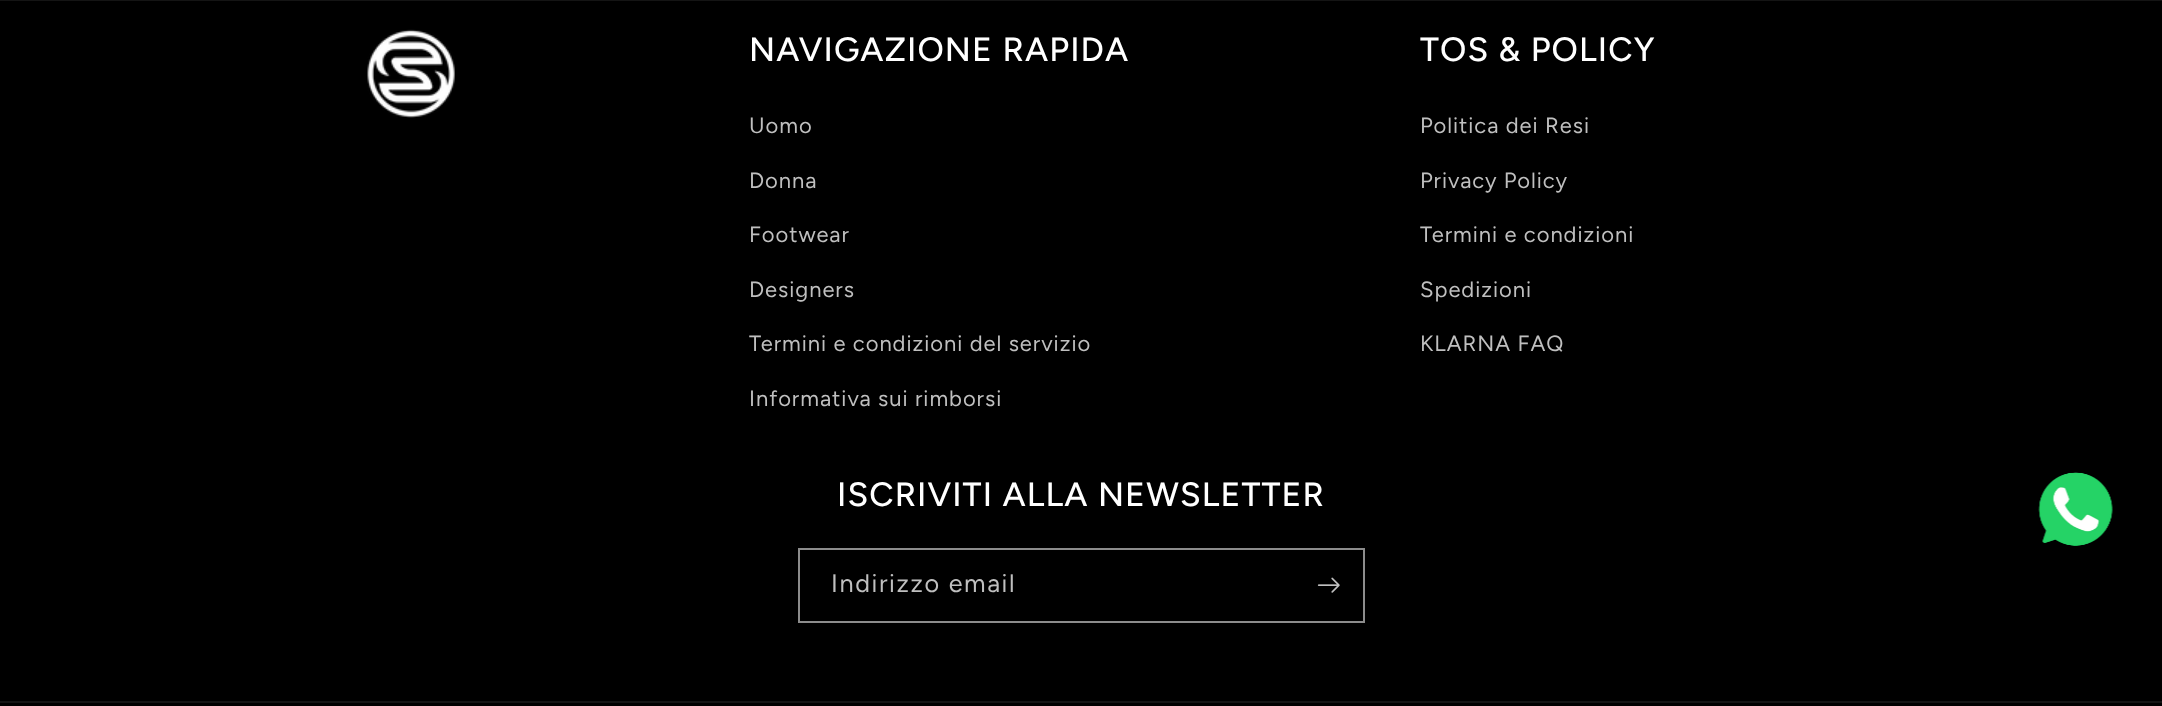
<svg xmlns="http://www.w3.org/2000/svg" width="2162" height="706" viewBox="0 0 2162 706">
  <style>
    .t1 { font: 500 33.75px Figtree; letter-spacing: 1.1px; fill: #fff; }
    .t2 { font: 22px Figtree; letter-spacing: 0.95px; fill: #bfbfbf; }
    .t3 { font: 25.25px Figtree; letter-spacing: 1.6px; fill: #bfbfbf; }
  </style>
  <rect width="100%" height="100%" fill="#000"/>
  <rect x="0" y="0" width="2162" height="1" fill="#141414"/>
  <image x="367" y="29" width="88" height="89" href="images/1.png"/>
  <text x="749" y="61" class="t1">NAVIGAZIONE RAPIDA</text>
  <text x="749" y="133" class="t2">Uomo</text>
  <text x="749" y="188" class="t2">Donna</text>
  <text x="749" y="242" class="t2">Footwear</text>
  <text x="749" y="297" class="t2">Designers</text>
  <text x="749" y="351" class="t2">Termini e condizioni del servizio</text>
  <text x="749" y="406" class="t2">Informativa sui rimborsi</text>
  <text x="1420" y="61" class="t1">TOS &amp; POLICY</text>
  <text x="1420" y="133" class="t2">Politica dei Resi</text>
  <text x="1420" y="188" class="t2">Privacy Policy</text>
  <text x="1420" y="242" class="t2">Termini e condizioni</text>
  <text x="1420" y="297" class="t2">Spedizioni</text>
  <text x="1420" y="351" class="t2">KLARNA FAQ</text>
  <text x="837" y="506" class="t1">ISCRIVITI ALLA NEWSLETTER</text>
  <rect x="799" y="549" width="565" height="73" fill="none" stroke="#8c8c8c" stroke-width="2"/>
  <text x="831" y="592" class="t3">Indirizzo email</text>
  <image x="1317" y="577" width="23" height="16" href="images/2.png"/>
  <rect x="0" y="701" width="2162" height="2" fill="#141414"/>
  <image x="2038" y="472" width="75" height="74" href="images/3.png"/>
</svg>
